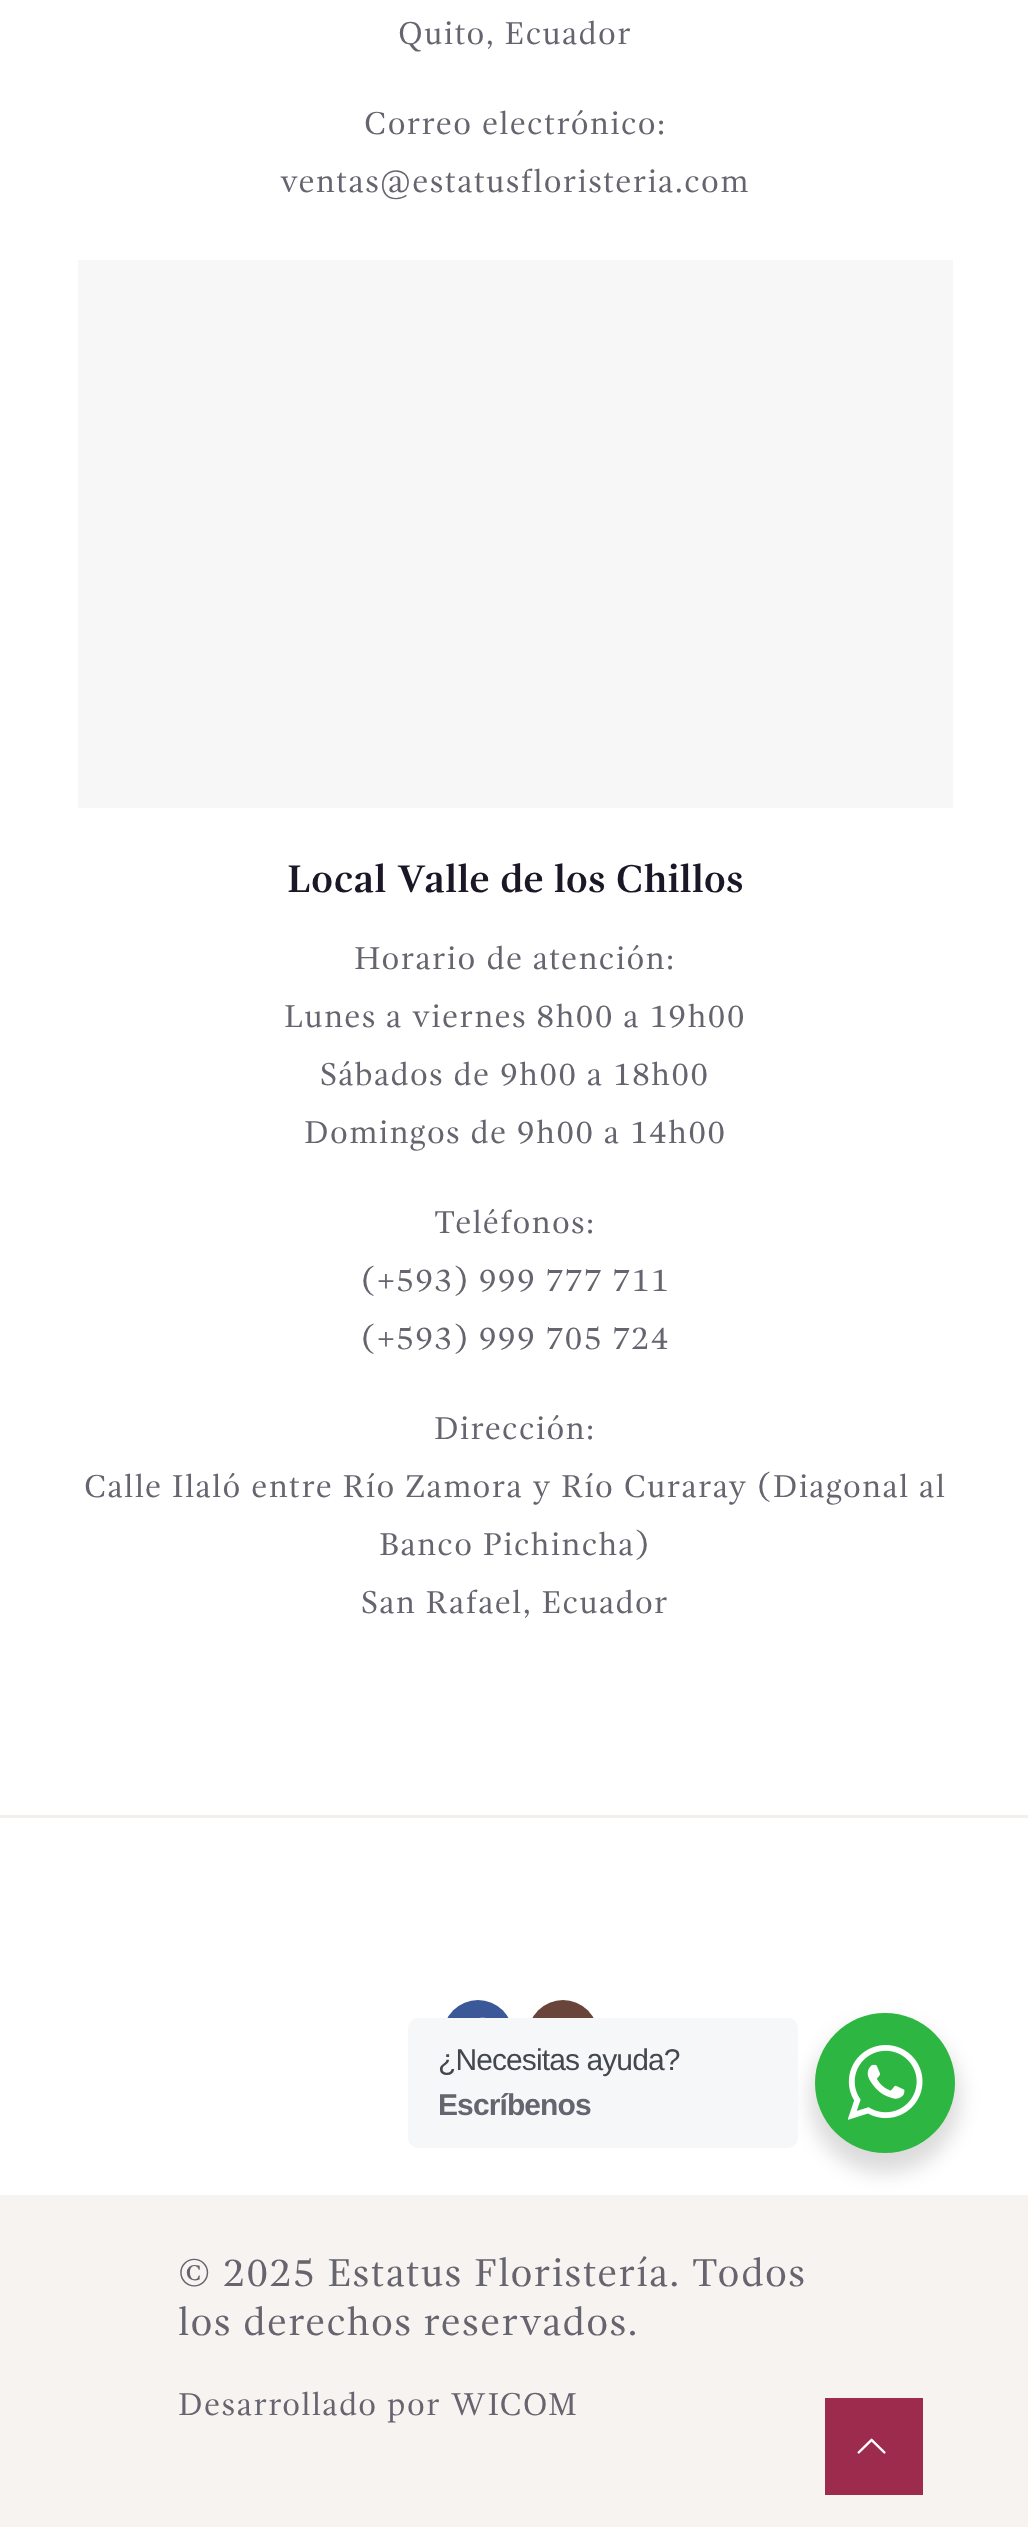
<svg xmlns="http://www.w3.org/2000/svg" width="1028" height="2527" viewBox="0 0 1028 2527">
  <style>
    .t1 { font: 32.5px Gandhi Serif; letter-spacing: 1.25px; fill: #66646e; }
    .t2 { font: bold 39.75px Gandhi Serif; fill: #1b1726; }
    .t3 { font: 40px Gandhi Serif; letter-spacing: 1.25px; fill: #66646e; }
    .t4 { font: 30px Liberation Sans; letter-spacing: -0.9px; fill: #43474e; }
    .t5 { font: bold 30px Liberation Sans; letter-spacing: -0.9px; fill: #66646e; }
  </style>
  <rect width="100%" height="100%" fill="#fff"/>
  <text x="398" y="44" class="t1">Quito, Ecuador</text>
  <text x="364" y="134" class="t1">Correo electrónico:</text>
  <text x="280" y="192" class="t1">ventas@estatusfloristeria.com</text>
  <rect x="78" y="260" width="875" height="548" fill="#f7f7f7"/>
  <text x="287" y="892" class="t2">Local Valle de los Chillos</text>
  <text x="354" y="969" class="t1">Horario de atención:</text>
  <text x="284" y="1027" class="t1">Lunes a viernes 8h00 a 19h00</text>
  <text x="320" y="1085" class="t1">Sábados de 9h00 a 18h00</text>
  <text x="304" y="1143" class="t1">Domingos de 9h00 a 14h00</text>
  <text x="434" y="1233" class="t1">Teléfonos:</text>
  <text x="361" y="1291" class="t1">(+593) 999 777 711</text>
  <text x="361" y="1349" class="t1">(+593) 999 705 724</text>
  <text x="434" y="1439" class="t1">Dirección:</text>
  <text x="84" y="1497" class="t1">Calle Ilaló entre Río Zamora y Río Curaray (Diagonal al</text>
  <text x="379" y="1555" class="t1">Banco Pichincha)</text>
  <text x="361" y="1613" class="t1">San Rafael, Ecuador</text>
  <rect x="0" y="1815" width="1028" height="3" fill="#f2efed"/>
  <circle cx="478" cy="2035" r="35" fill="#3b5998"/>
  <image x="480" y="2017" width="6" height="1" href="images/1.png"/>
  <circle cx="563" cy="2035" r="35" fill="#69443a"/>
  <rect x="0" y="2195" width="1028" height="332" fill="#f7f3f1"/>
  <text x="178" y="2286" class="t3">© 2025 Estatus Floristería. Todos</text>
  <text x="178" y="2335" class="t3">los derechos reservados.</text>
  <text x="178" y="2415" class="t1">Desarrollado por WICOM</text>
  <rect x="810" y="2023" width="150" height="150" rx="75" fill="#00000024" filter="blur(10px)"/>
  <rect x="408" y="2018" width="390" height="130" rx="10" fill="#f5f7f9"/>
  <text x="438" y="2070" class="t4">¿Necesitas ayuda?</text>
  <text x="438" y="2115" class="t5">Escríbenos</text>
  <circle cx="885" cy="2083" r="70" fill="#2db742"/>
  <image x="848" y="2045" width="75" height="75" href="images/2.png"/>
  <rect x="825" y="2398" width="98" height="97" fill="#9d2b4e"/>
  <image x="857" y="2438" width="29" height="16" href="images/3.png"/>
</svg>
